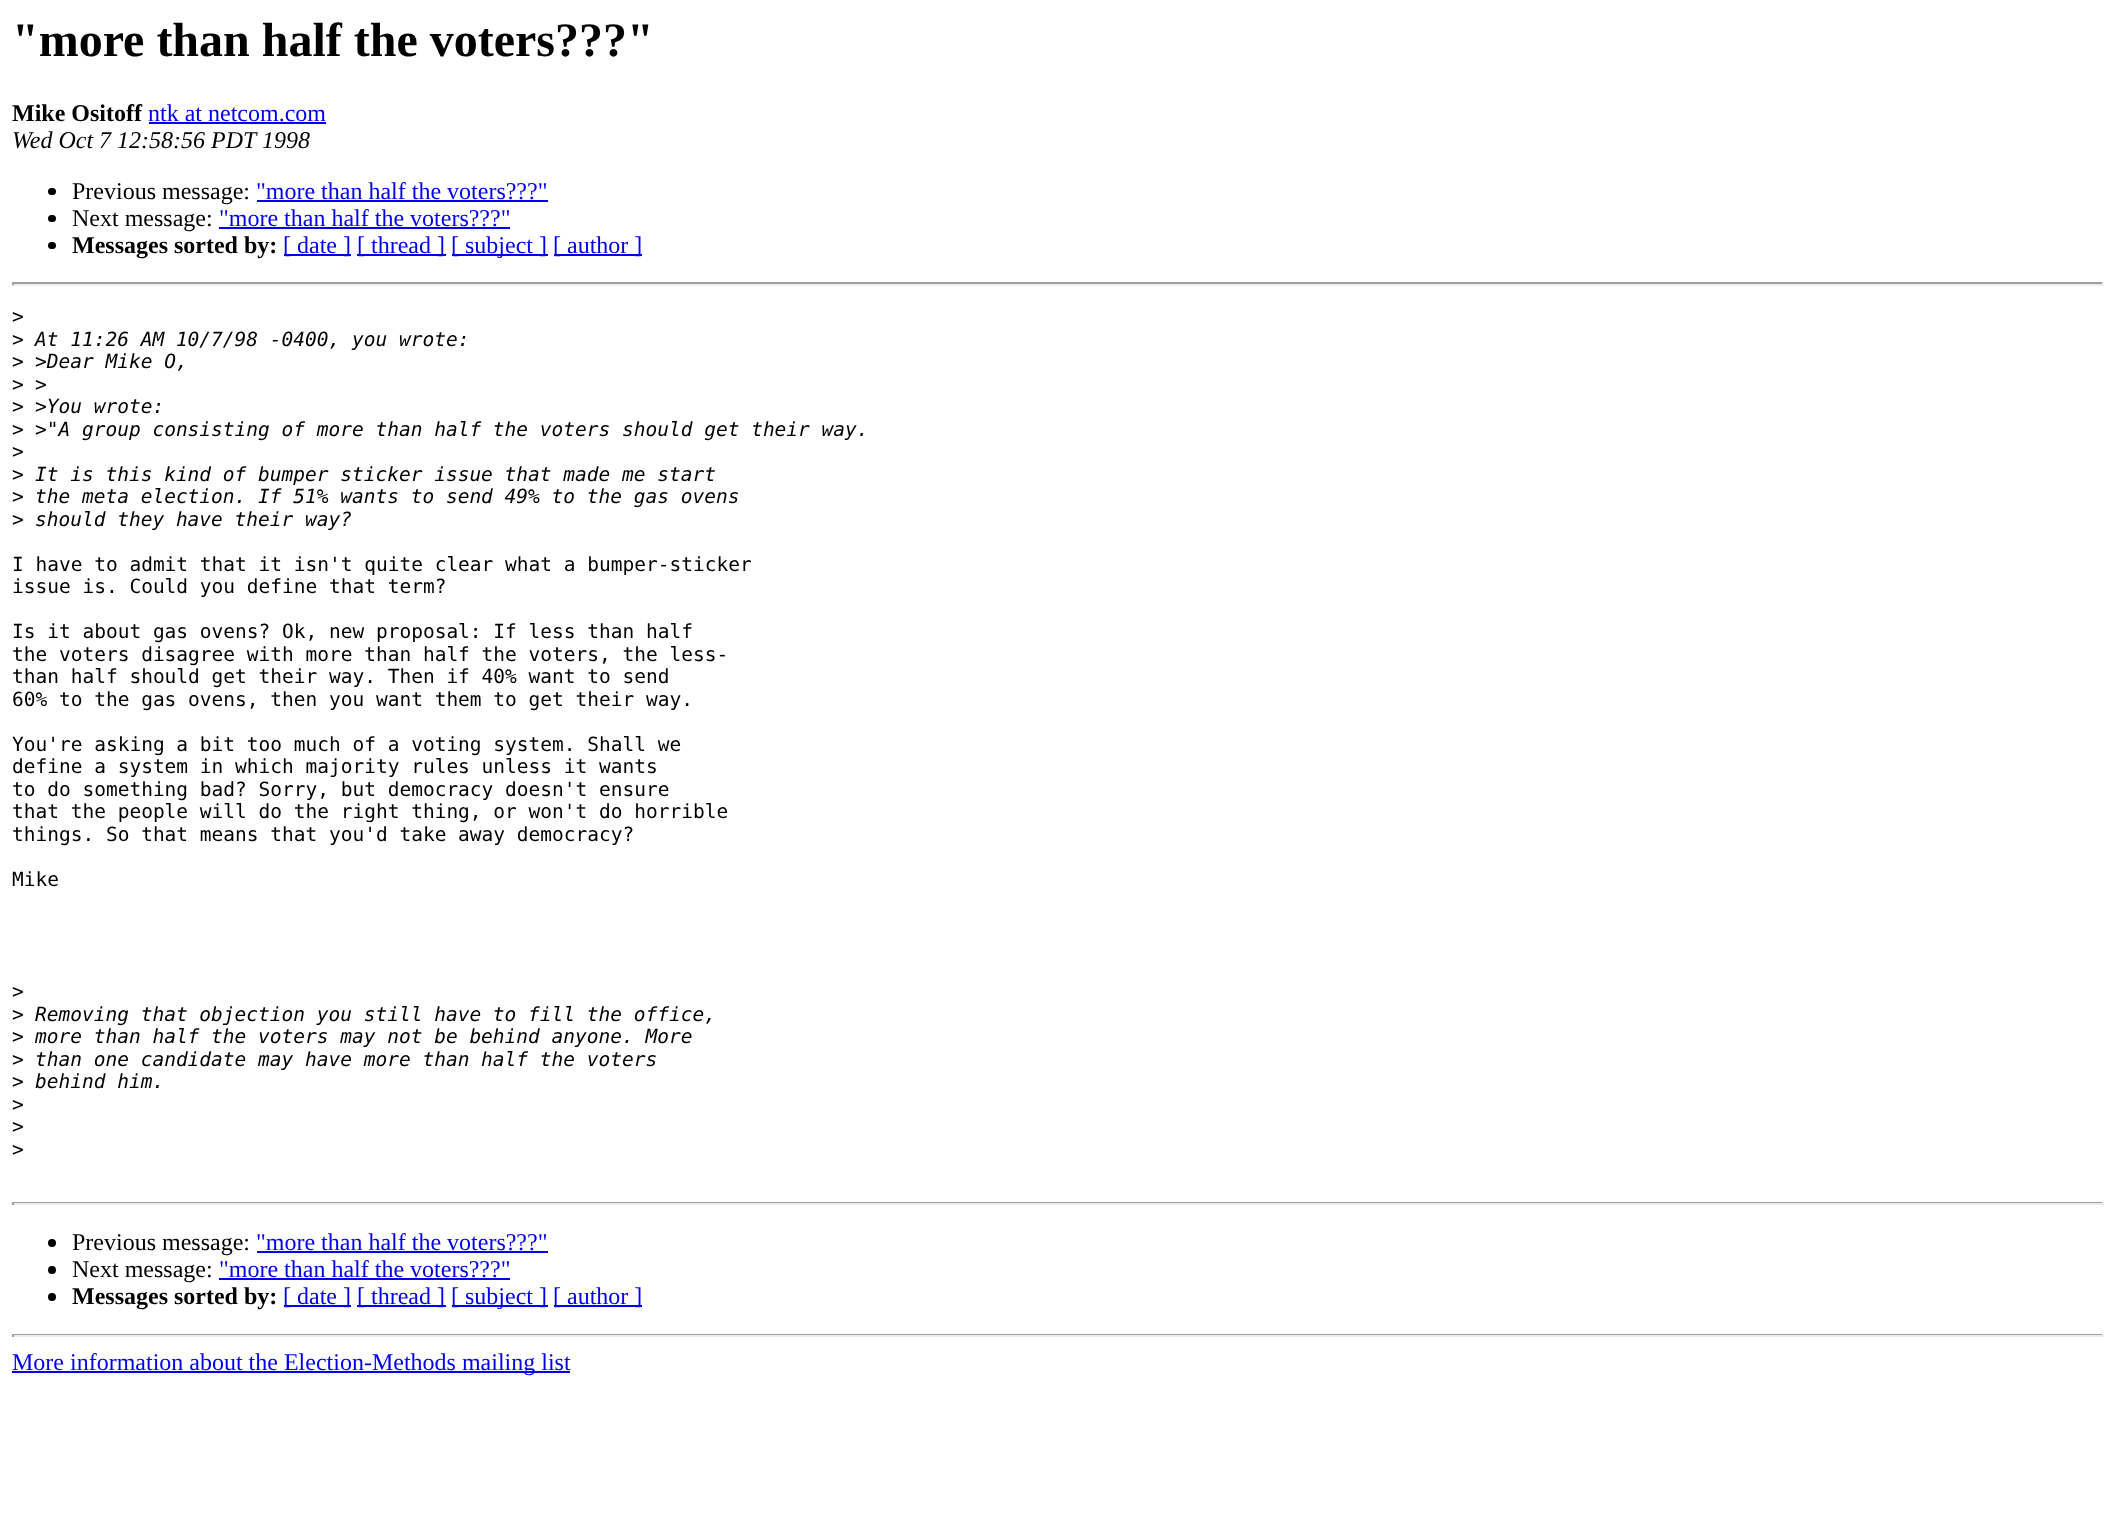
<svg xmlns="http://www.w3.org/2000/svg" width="2115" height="1527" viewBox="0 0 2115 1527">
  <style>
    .t1 { font: bold 48px Liberation Serif; fill: #000; }
    .t2 { font: bold 24px Liberation Serif; fill: #000; }
    .t3 { font: 24px Liberation Serif; fill: #00e; }
    .t4 { font: italic 24px Liberation Serif; fill: #000; }
    .t5 { font: 24px Liberation Serif; fill: #000; }
    .t6 { font: 19.5px DejaVu Sans Mono; fill: #000; }
    .t7 { font: italic 19.5px DejaVu Sans Mono; fill: #000; }
  </style>
  <rect width="100%" height="100%" fill="#fff"/>
  <text x="12" y="56" class="t1">"more than half the voters???"</text>
  <text x="12" y="121" class="t2">Mike Ositoff</text>
  <text x="148" y="121" class="t3">ntk at netcom.com</text>
  <rect x="149" y="122" width="177" height="2" fill="#00e"/>
  <text x="12" y="148" class="t4">Wed Oct 7 12:58:56 PDT 1998</text>
  <rect x="48" y="188" width="8" height="7" rx="3.5" fill="#000"/>
  <text x="72" y="199" class="t5">Previous message:</text>
  <text x="256" y="199" class="t3">"more than half the voters???"</text>
  <rect x="257" y="200" width="291" height="2" fill="#00e"/>
  <rect x="48" y="215" width="8" height="7" rx="3.5" fill="#000"/>
  <text x="72" y="226" class="t5">Next message:</text>
  <text x="219" y="226" class="t3">"more than half the voters???"</text>
  <rect x="219" y="227" width="291" height="2" fill="#00e"/>
  <rect x="48" y="242" width="8" height="7" rx="3.5" fill="#000"/>
  <text x="72" y="253" class="t2">Messages sorted by:</text>
  <rect x="284" y="254" width="67" height="2" fill="#00e"/>
  <text x="283" y="253" class="t3">[ date ]</text>
  <rect x="357" y="254" width="89" height="2" fill="#00e"/>
  <text x="357" y="253" class="t3">[ thread ]</text>
  <rect x="452" y="254" width="96" height="2" fill="#00e"/>
  <text x="451" y="253" class="t3">[ subject ]</text>
  <rect x="554" y="254" width="88" height="2" fill="#00e"/>
  <text x="553" y="253" class="t3">[ author ]</text>
  <rect x="12" y="282" width="2091" height="2" fill="#9f9f9f"/>
  <rect x="2102" y="282" width="2" height="3" fill="#eee"/>
  <rect x="12" y="284" width="2091" height="2" fill="#eee"/>
  <rect x="12" y="282" width="2" height="3" fill="#9f9f9f"/>
  <text x="12" y="323" class="t6">&gt;</text>
  <text x="12" y="346" class="t6">&gt;</text>
  <text x="35" y="346" class="t7">At 11:26 AM 10/7/98 -0400, you wrote:</text>
  <text x="12" y="368" class="t6">&gt;</text>
  <text x="35" y="368" class="t7">&gt;Dear Mike O,</text>
  <text x="12" y="391" class="t6">&gt;</text>
  <text x="35" y="391" class="t7">&gt;</text>
  <text x="12" y="413" class="t6">&gt;</text>
  <text x="35" y="413" class="t7">&gt;You wrote:</text>
  <text x="12" y="436" class="t6">&gt;</text>
  <text x="35" y="436" class="t7">&gt;"A group consisting of more than half the voters should get their way.</text>
  <text x="12" y="458" class="t6">&gt;</text>
  <text x="12" y="481" class="t6">&gt;</text>
  <text x="35" y="481" class="t7">It is this kind of bumper sticker issue that made me start</text>
  <text x="12" y="503" class="t6">&gt;</text>
  <text x="35" y="503" class="t7">the meta election. If 51% wants to send 49% to the gas ovens</text>
  <text x="12" y="526" class="t6">&gt;</text>
  <text x="35" y="526" class="t7">should they have their way?</text>
  <text x="12" y="571" class="t6">I have to admit that it isn't quite clear what a bumper-sticker</text>
  <text x="12" y="593" class="t6">issue is. Could you define that term?</text>
  <text x="12" y="638" class="t6">Is it about gas ovens? Ok, new proposal: If less than half</text>
  <text x="12" y="661" class="t6">the voters disagree with more than half the voters, the less-</text>
  <text x="12" y="683" class="t6">than half should get their way. Then if 40% want to send</text>
  <text x="12" y="706" class="t6">60% to the gas ovens, then you want them to get their way.</text>
  <text x="12" y="751" class="t6">You're asking a bit too much of a voting system. Shall we</text>
  <text x="12" y="773" class="t6">define a system in which majority rules unless it wants</text>
  <text x="12" y="796" class="t6">to do something bad? Sorry, but democracy doesn't ensure</text>
  <text x="12" y="818" class="t6">that the people will do the right thing, or won't do horrible</text>
  <text x="12" y="841" class="t6">things. So that means that you'd take away democracy?</text>
  <text x="12" y="886" class="t6">Mike</text>
  <text x="12" y="998" class="t6">&gt;</text>
  <text x="12" y="1021" class="t6">&gt;</text>
  <text x="35" y="1021" class="t7">Removing that objection you still have to fill the office,</text>
  <text x="12" y="1043" class="t6">&gt;</text>
  <text x="35" y="1043" class="t7">more than half the voters may not be behind anyone. More</text>
  <text x="12" y="1066" class="t6">&gt;</text>
  <text x="35" y="1066" class="t7">than one candidate may have more than half the voters</text>
  <text x="12" y="1088" class="t6">&gt;</text>
  <text x="35" y="1088" class="t7">behind him.</text>
  <text x="12" y="1111" class="t6">&gt;</text>
  <text x="12" y="1133" class="t6">&gt;</text>
  <text x="12" y="1156" class="t6">&gt;</text>
  <rect x="12" y="1202" width="2091" height="1" fill="#9f9f9f"/>
  <rect x="2102" y="1202" width="2" height="3" fill="#eee"/>
  <rect x="12" y="1203" width="2091" height="2" fill="#eee"/>
  <rect x="12" y="1202" width="2" height="3" fill="#9f9f9f"/>
  <circle cx="52" cy="1243" r="4" fill="#000"/>
  <text x="72" y="1250" class="t5">Previous message:</text>
  <text x="256" y="1250" class="t3">"more than half the voters???"</text>
  <rect x="257" y="1251" width="291" height="2" fill="#00e"/>
  <circle cx="52" cy="1270" r="4" fill="#000"/>
  <text x="72" y="1277" class="t5">Next message:</text>
  <text x="219" y="1277" class="t3">"more than half the voters???"</text>
  <rect x="219" y="1278" width="291" height="2" fill="#00e"/>
  <circle cx="52" cy="1297" r="4" fill="#000"/>
  <text x="72" y="1304" class="t2">Messages sorted by:</text>
  <rect x="284" y="1305" width="67" height="2" fill="#00e"/>
  <text x="283" y="1304" class="t3">[ date ]</text>
  <rect x="357" y="1305" width="89" height="2" fill="#00e"/>
  <text x="357" y="1304" class="t3">[ thread ]</text>
  <rect x="452" y="1305" width="96" height="2" fill="#00e"/>
  <text x="451" y="1304" class="t3">[ subject ]</text>
  <rect x="554" y="1305" width="88" height="2" fill="#00e"/>
  <text x="553" y="1304" class="t3">[ author ]</text>
  <rect x="12" y="1334" width="2091" height="1" fill="#9f9f9f"/>
  <rect x="2102" y="1334" width="2" height="3" fill="#eee"/>
  <rect x="12" y="1335" width="2091" height="2" fill="#eee"/>
  <rect x="12" y="1334" width="2" height="3" fill="#9f9f9f"/>
  <rect x="12" y="1371" width="558" height="2" fill="#00e"/>
  <text x="12" y="1370" class="t3">More information about the Election-Methods mailing list</text>
</svg>
